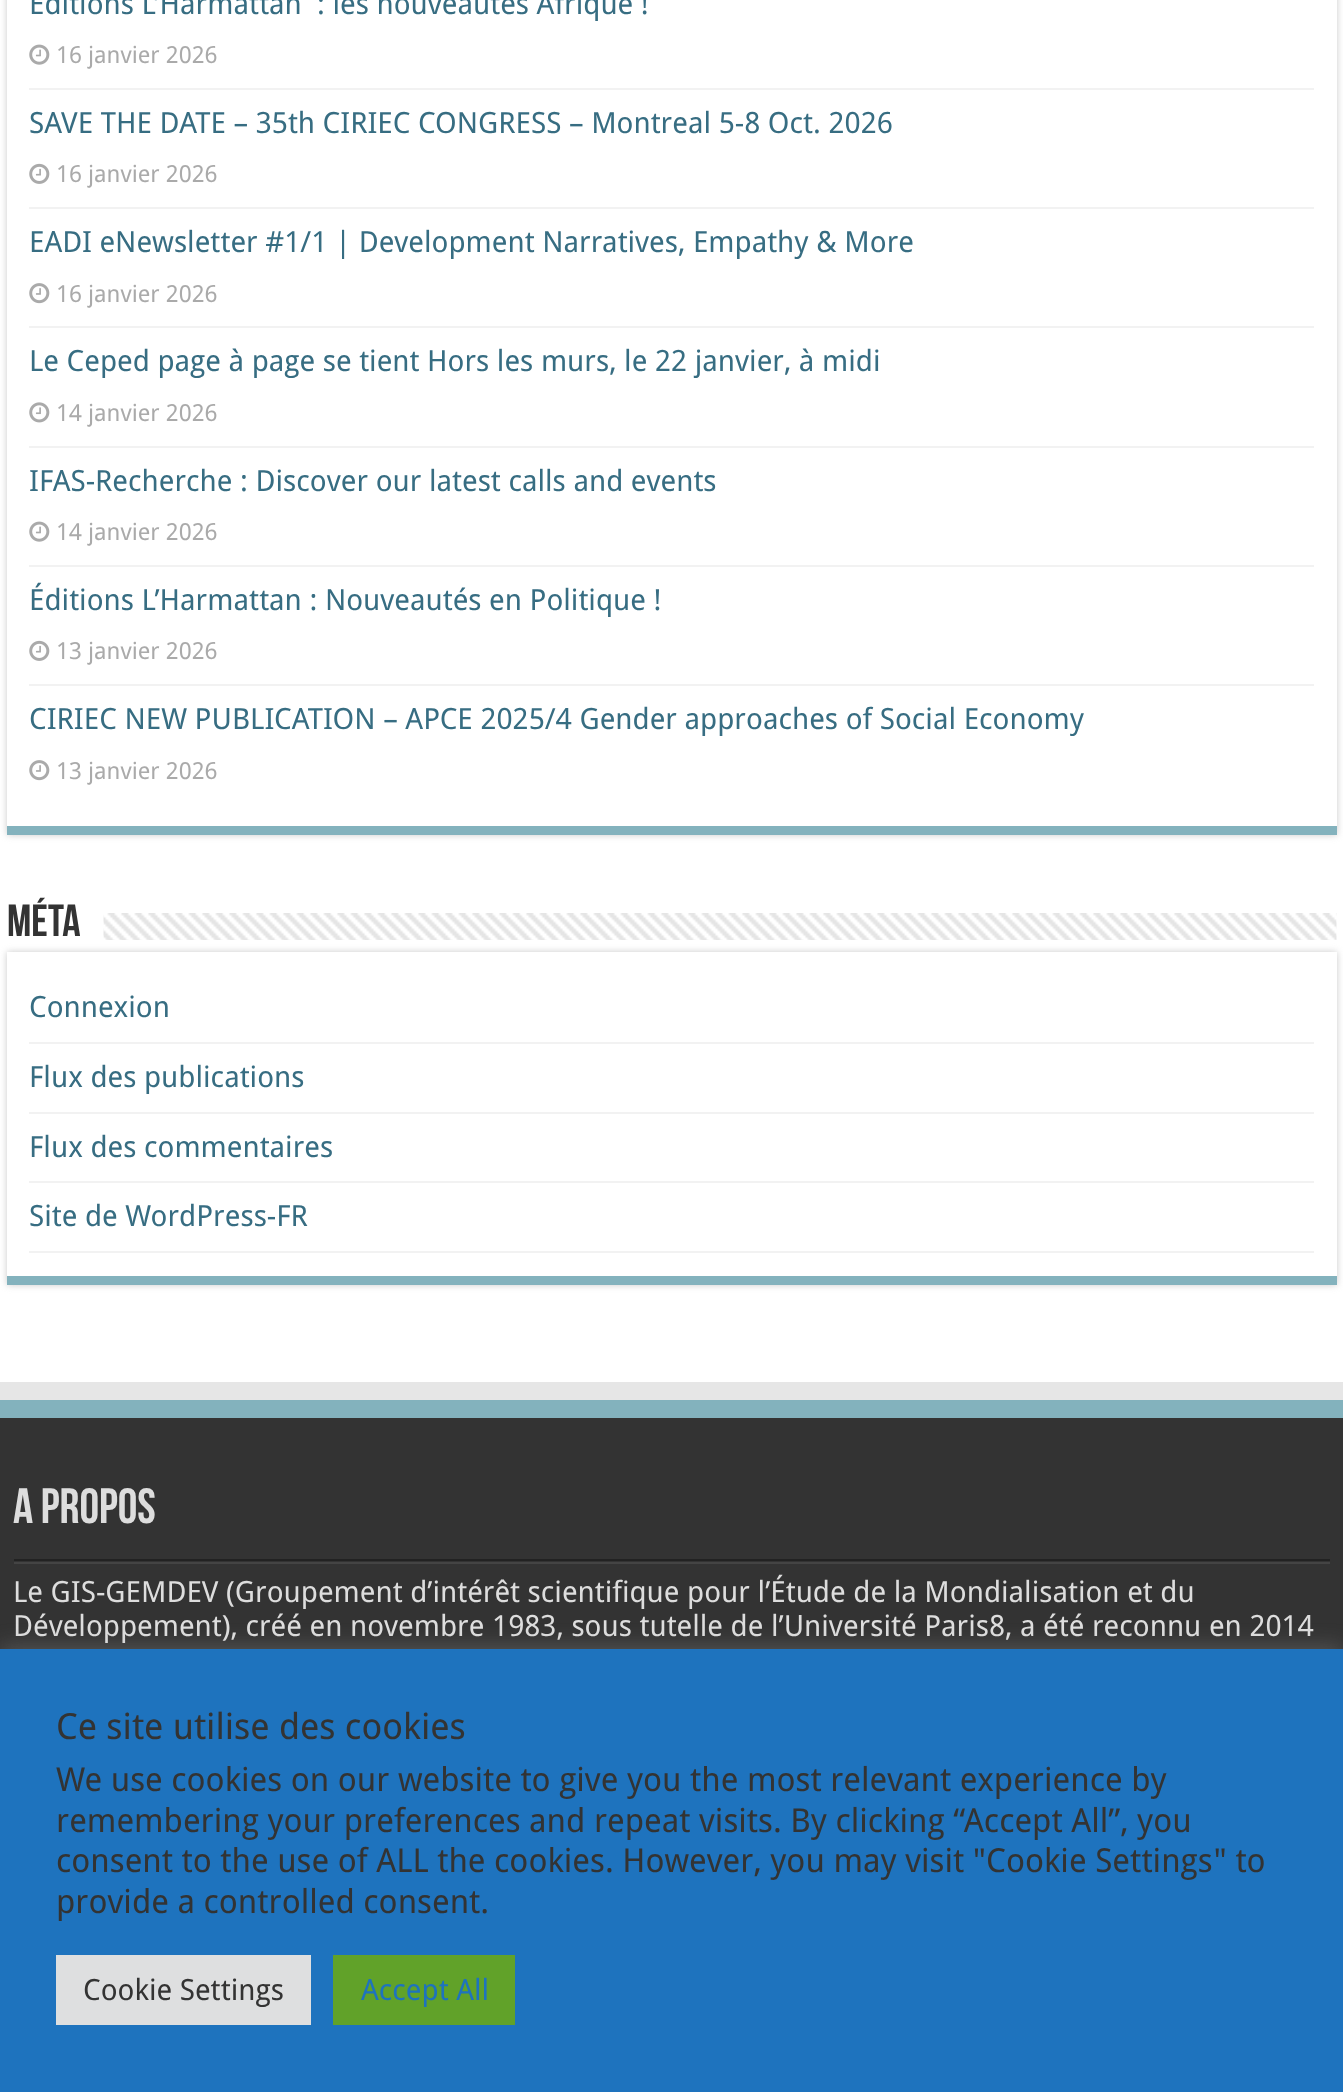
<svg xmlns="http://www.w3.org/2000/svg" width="1343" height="2092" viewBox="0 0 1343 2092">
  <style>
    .t1 { font: 29.25px Droid Sans; fill: #376d82; }
    .t2 { font: 23.5px Droid Sans; fill: #aaa; }
    .t3 { font: bold 45px Bebas Neue; fill: #333; }
    .t4 { font: bold 49.5px Bebas Neue; fill: #ddd; }
    .t5 { font: 29.25px Droid Sans; fill: #ddd; }
    .t6 { font: 36px Droid Sans; fill: #333; }
    .t7 { font: 33px Droid Sans; fill: #333; }
    .t8 { font: 29.25px Droid Sans; fill: #333; }
    .t9 { font: 29.25px Droid Sans; fill: #1e73be; }
  </style>
  <rect width="100%" height="100%" fill="#fff"/>
  <rect x="7" y="-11" width="1330" height="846" fill="#cacaca" filter="blur(3.5px)"/>
  <rect x="7" y="0" width="1330" height="826" fill="#fff"/>
  <rect x="7" y="826" width="1330" height="9" fill="#83b2bd"/>
  <rect x="29" y="88" width="1285" height="2" fill="#f2f2f2"/>
  <text x="29" y="14" class="t1" xml:space="preserve">Éditions L’Harmattan  : les nouveautés Afrique !</text>
  <image x="29" y="44" width="21" height="21" href="images/1.png"/>
  <text x="56" y="63" class="t2">16 janvier 2026</text>
  <rect x="29" y="207" width="1285" height="2" fill="#f2f2f2"/>
  <text x="29" y="133" class="t1">SAVE THE DATE – 35th CIRIEC CONGRESS – Montreal 5-8 Oct. 2026</text>
  <image x="29" y="163" width="21" height="21" href="images/2.png"/>
  <text x="56" y="182" class="t2">16 janvier 2026</text>
  <rect x="29" y="326" width="1285" height="2" fill="#f2f2f2"/>
  <text x="29" y="252" class="t1">EADI eNewsletter #1/1 | Development Narratives, Empathy &amp; More</text>
  <image x="29" y="283" width="21" height="21" href="images/3.png"/>
  <text x="56" y="302" class="t2">16 janvier 2026</text>
  <rect x="29" y="446" width="1285" height="2" fill="#f2f2f2"/>
  <text x="29" y="371" class="t1">Le Ceped page à page se tient Hors les murs, le 22 janvier, à midi</text>
  <image x="29" y="402" width="21" height="21" href="images/4.png"/>
  <text x="56" y="421" class="t2">14 janvier 2026</text>
  <rect x="29" y="565" width="1285" height="2" fill="#f2f2f2"/>
  <text x="29" y="491" class="t1">IFAS-Recherche : Discover our latest calls and events</text>
  <image x="29" y="521" width="21" height="21" href="images/1.png"/>
  <text x="56" y="540" class="t2">14 janvier 2026</text>
  <rect x="29" y="684" width="1285" height="2" fill="#f2f2f2"/>
  <text x="29" y="610" class="t1">Éditions L’Harmattan : Nouveautés en Politique !</text>
  <image x="29" y="640" width="21" height="21" href="images/2.png"/>
  <text x="56" y="659" class="t2">13 janvier 2026</text>
  <text x="29" y="729" class="t1">CIRIEC NEW PUBLICATION – APCE 2025/4 Gender approaches of Social Economy</text>
  <image x="29" y="760" width="21" height="21" href="images/3.png"/>
  <text x="56" y="779" class="t2">13 janvier 2026</text>
  <text x="7" y="936" class="t3">Méta</text>
  <image x="103" y="913" width="1234" height="27" href="images/5.png"/>
  <rect x="7" y="952" width="1330" height="333" fill="#cacaca" filter="blur(3.5px)"/>
  <rect x="7" y="952" width="1330" height="324" fill="#fff"/>
  <rect x="7" y="1276" width="1330" height="9" fill="#83b2bd"/>
  <rect x="29" y="1042" width="1285" height="2" fill="#f2f2f2"/>
  <text x="29" y="1017" class="t1">Connexion</text>
  <rect x="29" y="1112" width="1285" height="2" fill="#f2f2f2"/>
  <text x="29" y="1087" class="t1">Flux des publications</text>
  <rect x="29" y="1181" width="1285" height="2" fill="#f2f2f2"/>
  <text x="29" y="1157" class="t1">Flux des commentaires</text>
  <rect x="29" y="1251" width="1285" height="2" fill="#f2f2f2"/>
  <text x="29" y="1226" class="t1">Site de WordPress-FR</text>
  <rect x="0" y="1382" width="1343" height="18" fill="#e6e6e6"/>
  <rect x="0" y="1418" width="1343" height="231" fill="#333"/>
  <rect x="0" y="1400" width="1343" height="18" fill="#83b2bd"/>
  <rect x="14" y="1559" width="1316" height="2" fill="#222"/>
  <text x="13" y="1523" class="t4">A propos</text>
  <rect x="14" y="1562" width="1316" height="2" fill="#444"/>
  <text x="13" y="1602" class="t5">Le GIS-GEMDEV (Groupement d’intérêt scientifique pour l’Étude de la Mondialisation et du</text>
  <text x="13" y="1636" class="t5">Développement), créé en novembre 1983, sous tutelle de l’Université Paris8, a été reconnu en 2014</text>
  <rect x="0" y="1647" width="1343" height="443" fill="#acabab4d" filter="blur(11px)"/>
  <rect x="0" y="1649" width="1343" height="443" fill="#1e73be"/>
  <text x="56" y="1739" class="t6">Ce site utilise des cookies</text>
  <text x="56" y="1791" class="t7">We use cookies on our website to give you the most relevant experience by</text>
  <text x="56" y="1832" class="t7">remembering your preferences and repeat visits. By clicking “Accept All”, you</text>
  <text x="56" y="1872" class="t7">consent to the use of ALL the cookies. However, you may visit "Cookie Settings" to</text>
  <text x="56" y="1913" class="t7">provide a controlled consent.</text>
  <rect x="56" y="1955" width="255" height="70" fill="#dedfe0"/>
  <text x="83" y="2000" class="t8">Cookie Settings</text>
  <rect x="333" y="1955" width="182" height="70" fill="#61a229"/>
  <text x="361" y="2000" class="t9">Accept All</text>
</svg>
